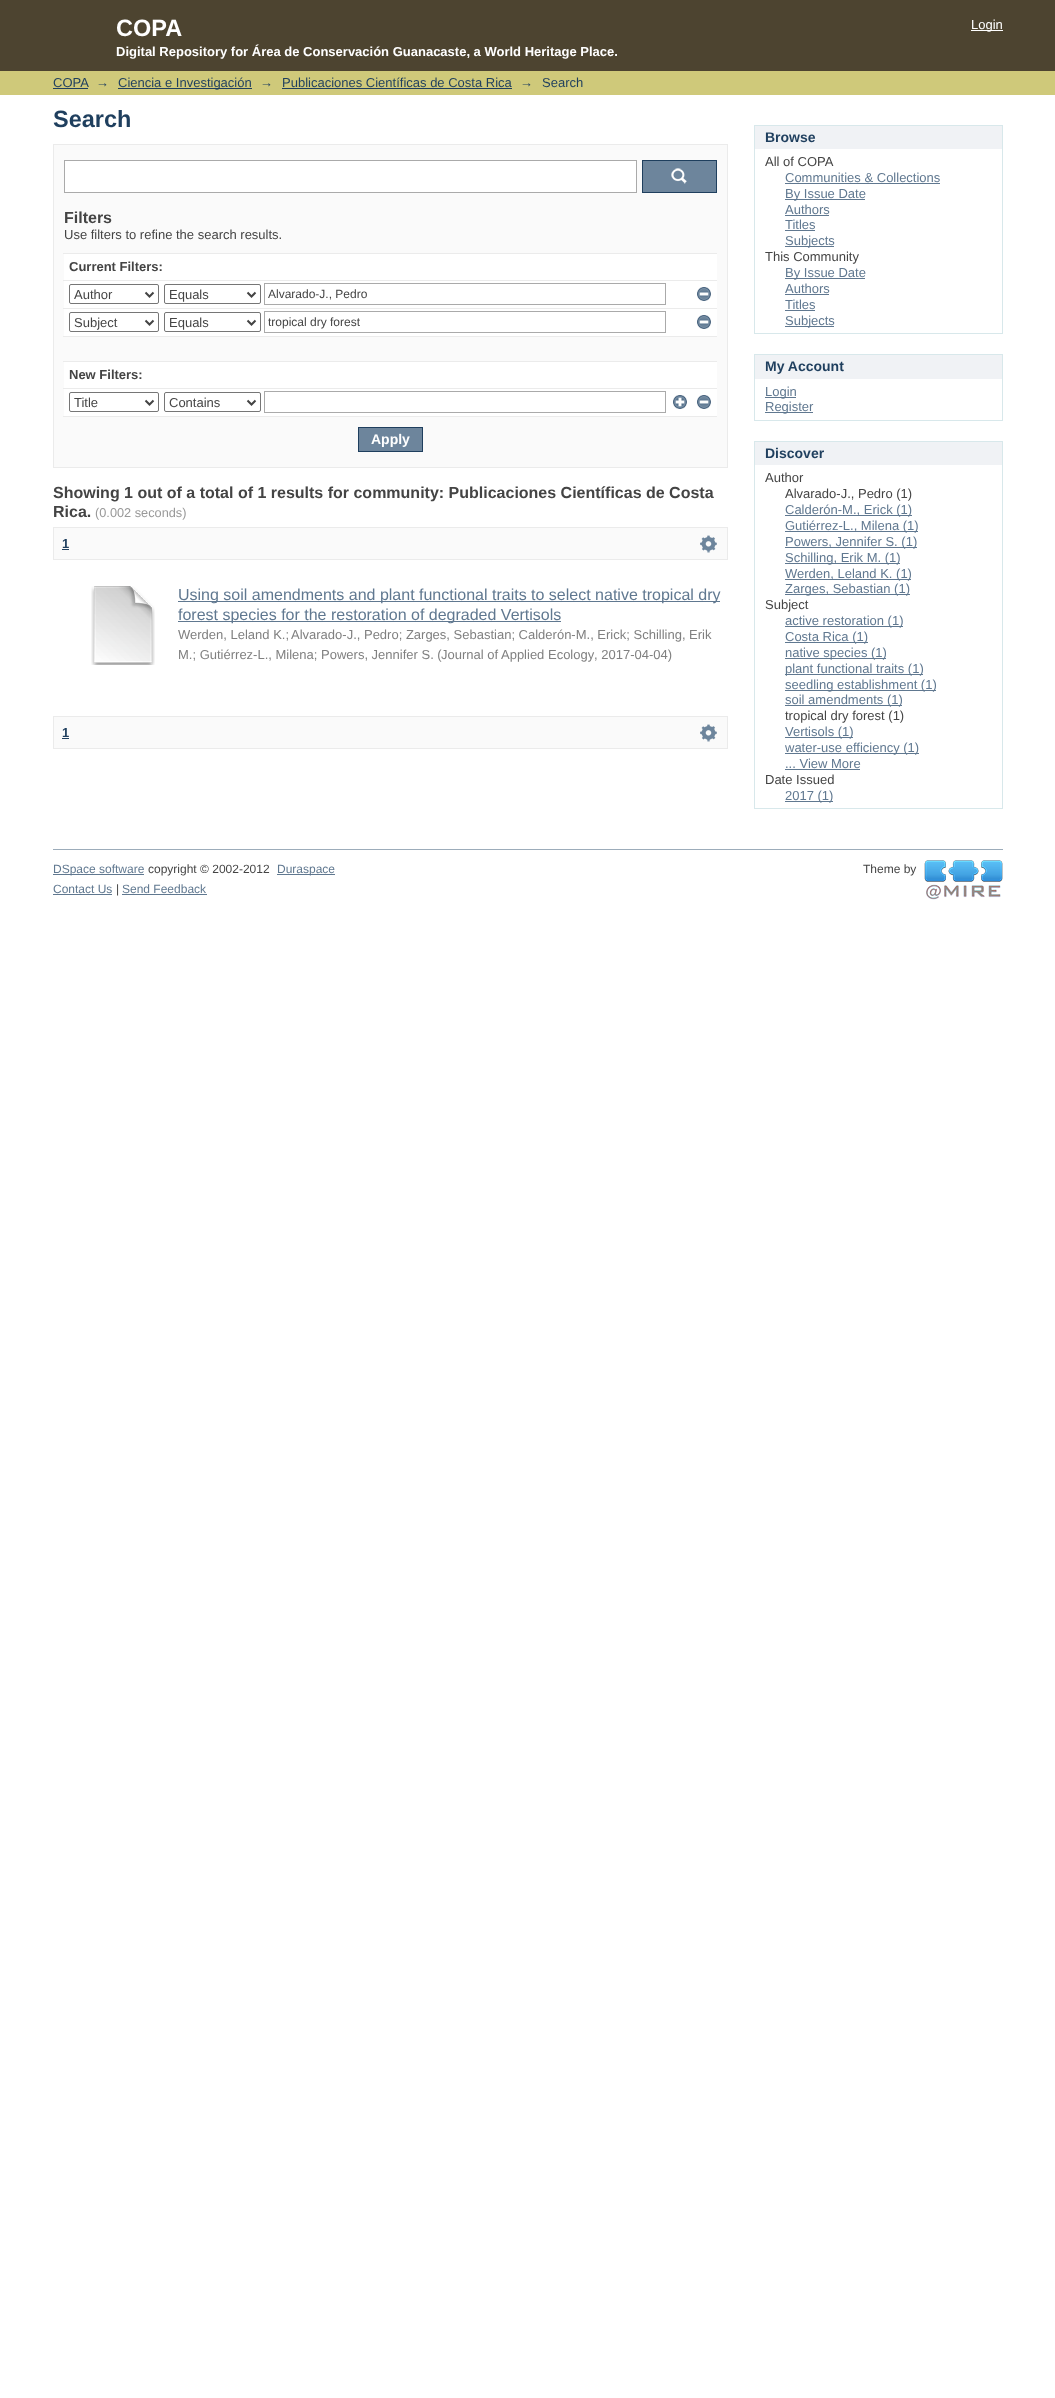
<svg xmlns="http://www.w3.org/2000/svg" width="1055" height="2398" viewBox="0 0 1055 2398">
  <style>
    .t1 { font: bold 23.5px Liberation Sans; fill: #fff; }
    .t2 { font: 13px Liberation Sans; fill: #fff; }
    .t3 { font: bold 13px Liberation Sans; fill: #fff; }
    .t4 { font: 13px Liberation Sans; fill: #1f3f5e; }
    .t5 { font: bold 23.5px Liberation Sans; fill: #1f3f5e; }
    .t6 { font: bold 16px Liberation Sans; fill: #444; }
    .t7 { font: 13px Liberation Sans; fill: #444; }
    .t8 { font: bold 13px Liberation Sans; fill: #444; }
    .t9 { font: 12px Liberation Sans; fill: #444; }
    .t10 { font: bold 14px Liberation Sans; fill: #fff; }
    .t11 { font: 12.75px Liberation Sans; fill: #999; }
    .t12 { font: bold 13px Liberation Sans; fill: #1f3f5e; }
    .t13 { font: 16px Liberation Sans; fill: #607890; }
    .t14 { font: 13px Liberation Sans; fill: #808080; }
    .t15 { font: bold 14px Liberation Sans; fill: #1f3f5e; }
    .t16 { font: 13px Liberation Sans; fill: #607890; }
    .t17 { font: 12px Liberation Sans; fill: #607890; }
  </style>
  <rect width="100%" height="100%" fill="#fff"/>
  <rect x="0" y="0" width="1055" height="71" fill="#4d4430"/>
  <text x="116" y="36" class="t1">COPA</text>
  <rect x="971" y="30" width="32" height="1" fill="#fff"/>
  <text x="971" y="29" class="t2">Login</text>
  <text x="116" y="56" class="t3">Digital Repository for Área de Conservación Guanacaste, a World Heritage Place.</text>
  <rect x="0" y="71" width="1055" height="24" fill="#cfc97a"/>
  <text x="53" y="87" class="t4">COPA</text>
  <rect x="53" y="88" width="35" height="1" fill="#1f3f5e"/>
  <text x="96" y="87" class="t4">→</text>
  <rect x="118" y="88" width="134" height="1" fill="#1f3f5e"/>
  <text x="118" y="87" class="t4">Ciencia e Investigación</text>
  <text x="260" y="87" class="t4">→</text>
  <text x="282" y="87" class="t4">Publicaciones Científicas de Costa Rica</text>
  <rect x="282" y="88" width="230" height="1" fill="#1f3f5e"/>
  <text x="520" y="87" class="t4">→</text>
  <text x="542" y="87" class="t4">Search</text>
  <text x="53" y="127" class="t5">Search</text>
  <rect x="53.5" y="144.5" width="674" height="323" fill="#fafafa" stroke="#ebebeb"/>
  <rect x="64.5" y="160.5" width="572" height="32" fill="#fff" stroke="#aaa"/>
  <rect x="643" y="161" width="73" height="31" fill="#6d859c"/>
  <image x="671" y="168" width="16" height="16" href="images/1.png"/>
  <rect x="642.5" y="160.5" width="74" height="32" fill="none" stroke="#1f3f5e"/>
  <text x="64" y="223" class="t6">Filters</text>
  <text x="64" y="239" class="t7">Use filters to refine the search results.</text>
  <rect x="64" y="254" width="653" height="162" fill="#fff"/>
  <rect x="63" y="253" width="654" height="1" fill="#ebebeb"/>
  <text x="69" y="271" class="t8">Current Filters:</text>
  <rect x="63" y="280" width="654" height="1" fill="#ebebeb"/>
  <rect x="69.5" y="284.5" width="89" height="19" rx="1.5" fill="none" stroke="#767676"/>
  <path d="M145.5 292.5L149.5 296.5L153.5 292.5" fill="none" stroke="#444" stroke-width="2"/>
  <text x="74" y="299" class="t7">Author</text>
  <rect x="164.5" y="284.5" width="96" height="19" rx="1.5" fill="none" stroke="#767676"/>
  <path d="M247.5 292.5L251.5 296.5L255.5 292.5" fill="none" stroke="#444" stroke-width="2"/>
  <text x="169" y="299" class="t7">Equals</text>
  <rect x="264.5" y="283.5" width="401" height="21" fill="none" stroke="#aaa"/>
  <text x="268" y="298" class="t9">Alvarado-J., Pedro</text>
  <image x="697" y="287" width="14" height="14" href="images/2.png"/>
  <rect x="63" y="308" width="654" height="1" fill="#ebebeb"/>
  <rect x="69.5" y="312.5" width="89" height="19" rx="1.5" fill="none" stroke="#767676"/>
  <path d="M145.5 320.5L149.5 324.5L153.5 320.5" fill="none" stroke="#444" stroke-width="2"/>
  <text x="74" y="327" class="t7">Subject</text>
  <rect x="164.5" y="312.5" width="96" height="19" rx="1.5" fill="none" stroke="#767676"/>
  <path d="M247.5 320.5L251.5 324.5L255.5 320.5" fill="none" stroke="#444" stroke-width="2"/>
  <text x="169" y="327" class="t7">Equals</text>
  <rect x="264.5" y="311.5" width="401" height="21" fill="none" stroke="#aaa"/>
  <text x="268" y="326" class="t9">tropical dry forest</text>
  <image x="697" y="315" width="14" height="14" href="images/2.png"/>
  <rect x="64" y="337" width="653" height="24" fill="#fafafa"/>
  <rect x="63" y="336" width="654" height="1" fill="#ebebeb"/>
  <rect x="63" y="361" width="654" height="1" fill="#ebebeb"/>
  <text x="69" y="379" class="t8">New Filters:</text>
  <rect x="63" y="388" width="654" height="1" fill="#ebebeb"/>
  <rect x="69.5" y="392.5" width="89" height="19" rx="1.5" fill="none" stroke="#767676"/>
  <path d="M145.5 400.5L149.5 404.5L153.5 400.5" fill="none" stroke="#444" stroke-width="2"/>
  <text x="74" y="407" class="t7">Title</text>
  <rect x="164.5" y="392.5" width="96" height="19" rx="1.5" fill="none" stroke="#767676"/>
  <path d="M247.5 400.5L251.5 404.5L255.5 400.5" fill="none" stroke="#444" stroke-width="2"/>
  <text x="169" y="407" class="t7">Contains</text>
  <rect x="264.5" y="391.5" width="401" height="21" fill="none" stroke="#aaa"/>
  <image x="673" y="395" width="14" height="14" href="images/3.png"/>
  <image x="697" y="395" width="14" height="14" href="images/2.png"/>
  <rect x="63" y="416" width="654" height="1" fill="#ebebeb"/>
  <rect x="358.5" y="427.5" width="64" height="24" fill="#6d859c" stroke="#1f3f5e"/>
  <text x="371" y="444" class="t10">Apply</text>
  <text x="53" y="498" class="t6">Showing 1 out of a total of 1 results for community: Publicaciones Científicas de Costa</text>
  <text x="53" y="517" class="t6">Rica.</text>
  <text x="95" y="517" class="t11">(0.002 seconds)</text>
  <rect x="53.5" y="527.5" width="674" height="32" fill="#fafafa" stroke="#ebebeb"/>
  <text x="62" y="548" class="t12">1</text>
  <rect x="62" y="549" width="7" height="1" fill="#1f3f5e"/>
  <image x="700" y="535" width="17" height="18" href="images/4.png"/>
  <image x="91" y="586" width="64" height="79" href="images/5.png"/>
  <rect x="178" y="601" width="542" height="1" fill="#607890"/>
  <text x="178" y="600" class="t13">Using soil amendments and plant functional traits to select native tropical dry</text>
  <rect x="178" y="621" width="383" height="1" fill="#607890"/>
  <text x="178" y="620" class="t13">forest species for the restoration of degraded Vertisols</text>
  <text x="178" y="639" class="t14">Werden, Leland K.;</text>
  <text x="291" y="639" class="t14">Alvarado-J., Pedro; Zarges, Sebastian; Calderón-M., Erick; Schilling, Erik</text>
  <text x="178" y="659" class="t14">M.; Gutiérrez-L., Milena; Powers, Jennifer S. (</text>
  <text x="441" y="659" class="t14">Journal of Applied Ecology</text>
  <text x="594" y="659" class="t14">, 2017-04-04)</text>
  <rect x="53.5" y="716.5" width="674" height="32" fill="#fafafa" stroke="#ebebeb"/>
  <text x="62" y="737" class="t12">1</text>
  <rect x="62" y="738" width="7" height="1" fill="#1f3f5e"/>
  <image x="700" y="724" width="17" height="18" href="images/4.png"/>
  <rect x="755" y="126" width="247" height="23" fill="#f0f2f5"/>
  <rect x="754" y="125" width="249" height="1" fill="#d8e8eb"/>
  <rect x="1002" y="125" width="1" height="209" fill="#d8e8eb"/>
  <rect x="754" y="125" width="1" height="24" fill="#d8e8eb"/>
  <text x="765" y="142" class="t15">Browse</text>
  <rect x="754" y="333" width="249" height="1" fill="#d8e8eb"/>
  <rect x="754" y="149" width="1" height="185" fill="#d8e8eb"/>
  <text x="765" y="166" class="t7">All of COPA</text>
  <text x="785" y="182" class="t16">Communities &amp; Collections</text>
  <rect x="785" y="183" width="155" height="1" fill="#607890"/>
  <rect x="785" y="199" width="80" height="1" fill="#607890"/>
  <text x="785" y="198" class="t16">By Issue Date</text>
  <text x="785" y="214" class="t16">Authors</text>
  <rect x="785" y="215" width="44" height="1" fill="#607890"/>
  <text x="785" y="229" class="t16">Titles</text>
  <rect x="785" y="230" width="30" height="1" fill="#607890"/>
  <rect x="785" y="246" width="49" height="1" fill="#607890"/>
  <text x="785" y="245" class="t16">Subjects</text>
  <text x="765" y="261" class="t7">This Community</text>
  <rect x="785" y="278" width="80" height="1" fill="#607890"/>
  <text x="785" y="277" class="t16">By Issue Date</text>
  <text x="785" y="293" class="t16">Authors</text>
  <rect x="785" y="294" width="44" height="1" fill="#607890"/>
  <text x="785" y="309" class="t16">Titles</text>
  <rect x="785" y="310" width="30" height="1" fill="#607890"/>
  <rect x="785" y="326" width="49" height="1" fill="#607890"/>
  <text x="785" y="325" class="t16">Subjects</text>
  <rect x="755" y="355" width="247" height="24" fill="#f0f2f5"/>
  <rect x="754" y="354" width="249" height="1" fill="#d8e8eb"/>
  <rect x="1002" y="354" width="1" height="67" fill="#d8e8eb"/>
  <rect x="754" y="354" width="1" height="25" fill="#d8e8eb"/>
  <text x="765" y="371" class="t15">My Account</text>
  <rect x="754" y="420" width="249" height="1" fill="#d8e8eb"/>
  <rect x="754" y="379" width="1" height="42" fill="#d8e8eb"/>
  <rect x="765" y="397" width="31" height="1" fill="#607890"/>
  <text x="765" y="396" class="t16">Login</text>
  <rect x="765" y="412" width="48" height="1" fill="#607890"/>
  <text x="765" y="411" class="t16">Register</text>
  <rect x="755" y="442" width="247" height="23" fill="#f0f2f5"/>
  <rect x="754" y="441" width="249" height="1" fill="#d8e8eb"/>
  <rect x="1002" y="441" width="1" height="368" fill="#d8e8eb"/>
  <rect x="754" y="441" width="1" height="24" fill="#d8e8eb"/>
  <text x="765" y="458" class="t15">Discover</text>
  <rect x="754" y="808" width="249" height="1" fill="#d8e8eb"/>
  <rect x="754" y="465" width="1" height="344" fill="#d8e8eb"/>
  <text x="765" y="482" class="t7">Author</text>
  <text x="785" y="498" class="t7">Alvarado-J., Pedro (1)</text>
  <rect x="785" y="515" width="127" height="1" fill="#607890"/>
  <text x="785" y="514" class="t16">Calderón-M., Erick (1)</text>
  <rect x="785" y="531" width="133" height="1" fill="#607890"/>
  <text x="785" y="530" class="t16">Gutiérrez-L., Milena (1)</text>
  <rect x="785" y="547" width="132" height="1" fill="#607890"/>
  <text x="785" y="546" class="t16">Powers, Jennifer S. (1)</text>
  <rect x="785" y="563" width="115" height="1" fill="#607890"/>
  <text x="785" y="562" class="t16">Schilling, Erik M. (1)</text>
  <rect x="785" y="579" width="126" height="1" fill="#607890"/>
  <text x="785" y="578" class="t16">Werden, Leland K. (1)</text>
  <rect x="785" y="594" width="125" height="1" fill="#607890"/>
  <text x="785" y="593" class="t16">Zarges, Sebastian (1)</text>
  <text x="765" y="609" class="t7">Subject</text>
  <rect x="785" y="626" width="118" height="1" fill="#607890"/>
  <text x="785" y="625" class="t16">active restoration (1)</text>
  <rect x="785" y="642" width="83" height="1" fill="#607890"/>
  <text x="785" y="641" class="t16">Costa Rica (1)</text>
  <rect x="785" y="658" width="101" height="1" fill="#607890"/>
  <text x="785" y="657" class="t16">native species (1)</text>
  <rect x="785" y="674" width="138" height="1" fill="#607890"/>
  <text x="785" y="673" class="t16">plant functional traits (1)</text>
  <rect x="785" y="690" width="151" height="1" fill="#607890"/>
  <text x="785" y="689" class="t16">seedling establishment (1)</text>
  <rect x="785" y="705" width="117" height="1" fill="#607890"/>
  <text x="785" y="704" class="t16">soil amendments (1)</text>
  <text x="785" y="720" class="t7">tropical dry forest (1)</text>
  <rect x="785" y="737" width="68" height="1" fill="#607890"/>
  <text x="785" y="736" class="t16">Vertisols (1)</text>
  <rect x="785" y="753" width="134" height="1" fill="#607890"/>
  <text x="785" y="752" class="t16">water-use efficiency (1)</text>
  <text x="785" y="768" class="t16">... View More</text>
  <rect x="785" y="769" width="75" height="1" fill="#607890"/>
  <text x="765" y="784" class="t7">Date Issued</text>
  <rect x="785" y="801" width="48" height="1" fill="#607890"/>
  <text x="785" y="800" class="t16">2017 (1)</text>
  <rect x="53" y="849" width="950" height="1" fill="#9cacba"/>
  <rect x="53" y="874" width="91" height="1" fill="#607890"/>
  <text x="53" y="873" class="t17">DSpace software</text>
  <text x="148" y="873" class="t9">copyright © 2002-2012</text>
  <rect x="277" y="874" width="58" height="1" fill="#607890"/>
  <text x="277" y="873" class="t17">Duraspace</text>
  <text x="863" y="873" class="t9">Theme by</text>
  <image x="924" y="860" width="79" height="40" href="images/6.png"/>
  <text x="53" y="893" class="t17">Contact Us</text>
  <rect x="53" y="894" width="59" height="1" fill="#607890"/>
  <text x="116" y="893" class="t9">|</text>
  <text x="122" y="893" class="t17">Send Feedback</text>
  <rect x="122" y="894" width="85" height="1" fill="#607890"/>
</svg>
